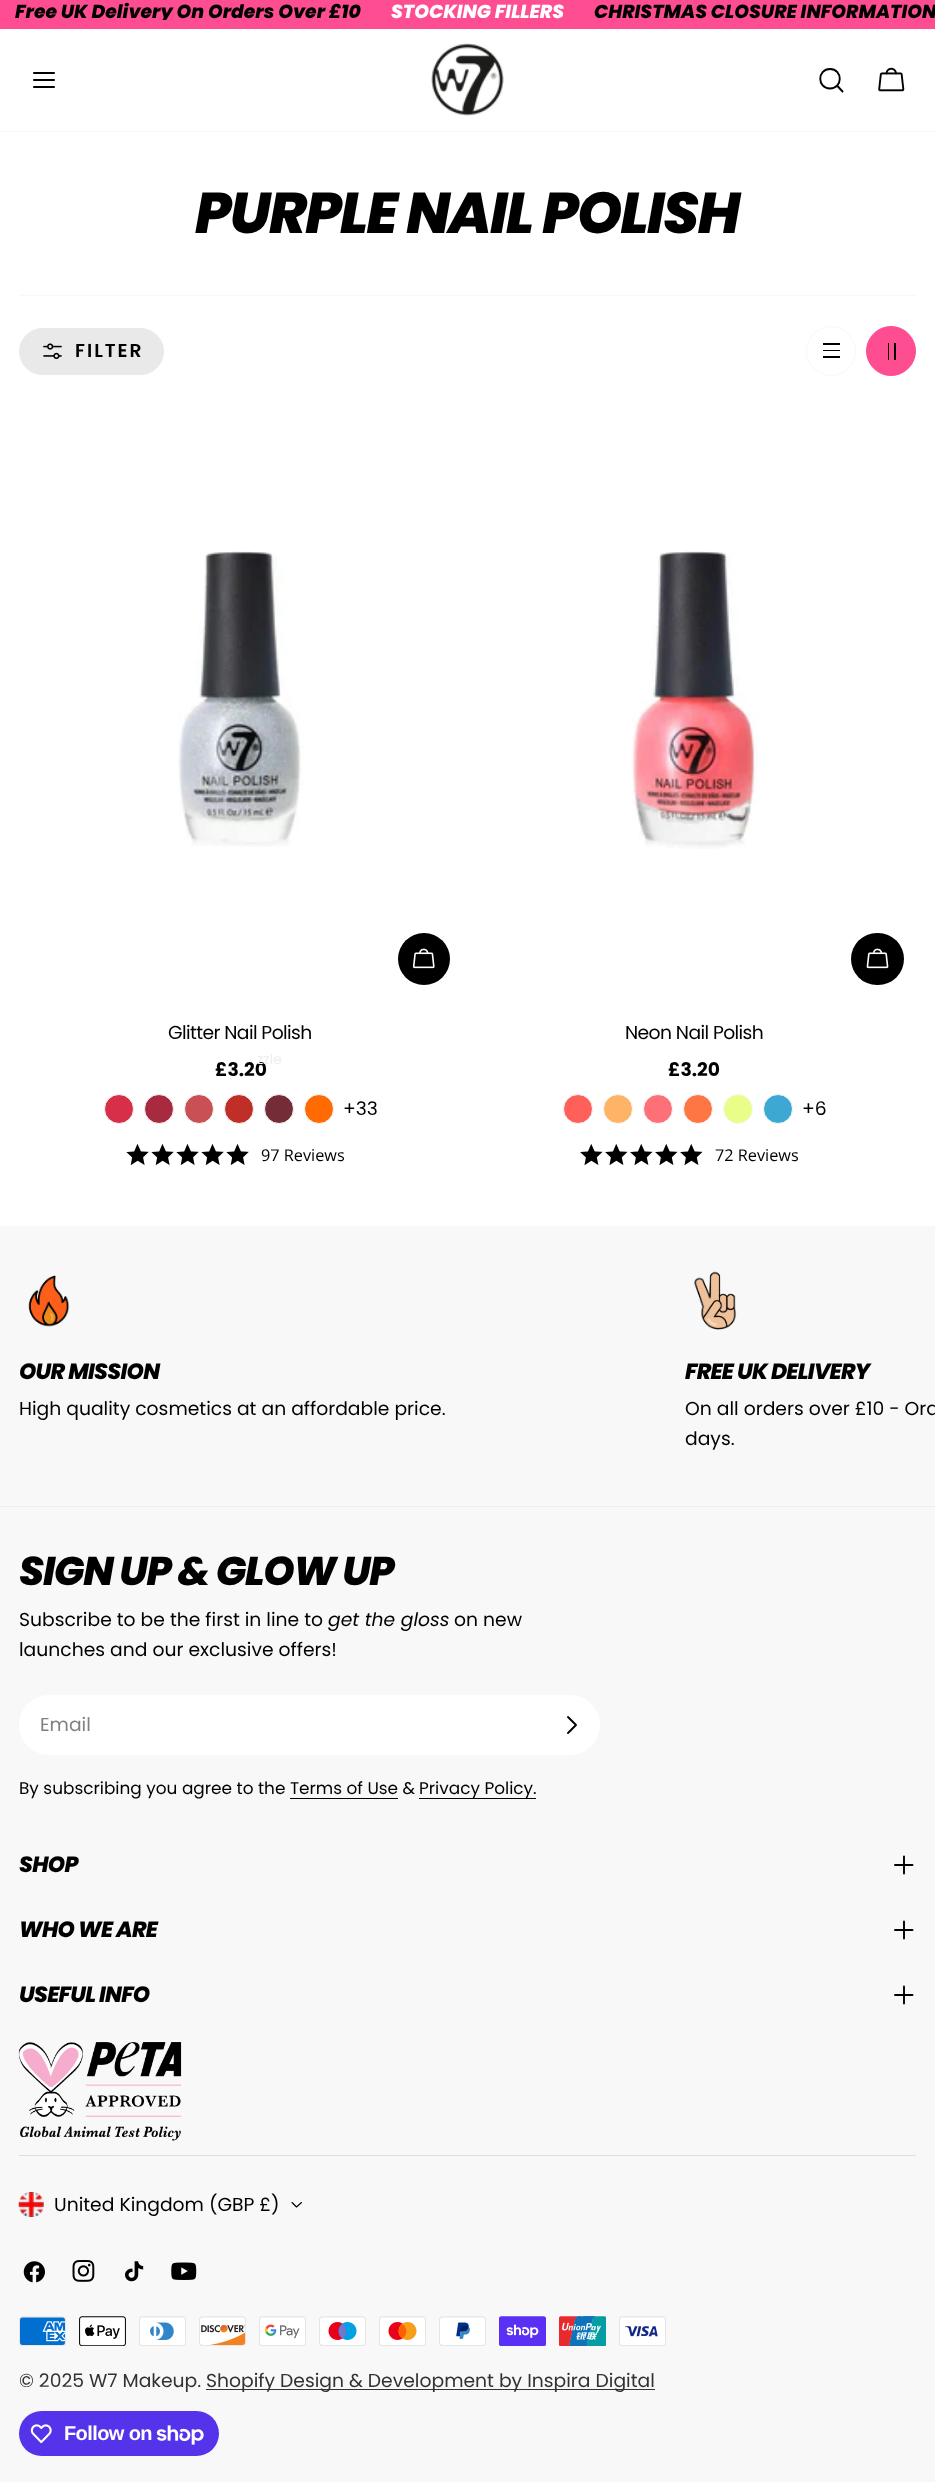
<svg xmlns="http://www.w3.org/2000/svg" width="935" height="2482" viewBox="0 0 935 2482">
  <style>
    .t1 { font: italic 800 18.75px Poppins; fill: #000; }
    .t2 { font: italic 800 18.75px Poppins; fill: #fff; }
    .t3 { font: italic 800 57.5px Poppins; letter-spacing: -1.75px; fill: #000; }
    .t4 { font: 600 18.75px Poppins; letter-spacing: 2px; fill: #000; }
    .t5 { font: 18.75px Poppins; letter-spacing: -0.6px; fill: #000; }
    .t6 { font: bold 18.75px Poppins; fill: #000; }
    .t7 { font: 14px Poppins; fill: #eee; }
    .t8 { font: 18.75px Poppins; fill: #000; }
    .t9 { font: 16.25px Open Sans; fill: #000; }
    .t10 { font: italic 800 22px Poppins; letter-spacing: -0.7px; fill: #000; }
    .t11 { font: italic 800 40px Poppins; letter-spacing: -1.25px; fill: #000; }
    .t12 { font: italic 18.75px Poppins; fill: #000; }
    .t13 { font: 18.75px Poppins; fill: #808080; }
    .t14 { font: 16.9px Poppins; fill: #000; }
    .t15 { font: 18.75px Poppins; fill: #323232; }
    .t16 { font: bold 20px Liberation Sans; letter-spacing: -0.6px; fill: #fff; }
  </style>
  <defs>
    <clipPath id="clip1"><rect x="0" y="1" width="935" height="19"/></clipPath>
  </defs>
  <rect width="100%" height="100%" fill="#fff"/>
  <rect x="0" y="0" width="935" height="29" fill="#ff4d92"/>
  <g clip-path="url(#clip1)">
    <text x="15" y="18" class="t1">Free UK Delivery On Orders Over £10</text>
  </g>
  <text x="391" y="18" class="t2">STOCKING FILLERS</text>
  <text x="594" y="18" class="t1">CHRISTMAS CLOSURE INFORMATION</text>
  <rect x="0" y="131" width="935" height="1" fill="#f8f8f8"/>
  <path d="M34 80H54M34 73H54M34 87H54" fill="none" stroke="#000" stroke-width="2.1" stroke-linecap="round" stroke-linejoin="round"/>
  <image x="431" y="43" width="73" height="73" href="images/1.png"/>
  <path d="M830 88.5C843 88.5 843 69 830 69C817 69 817 88.5 830 88.5ZM837 85.5L842.5 91.5" fill="none" stroke="#000" stroke-width="1.9" stroke-linecap="round" stroke-linejoin="round"/>
  <image x="878" y="67" width="27" height="25" href="images/2.png"/>
  <text x="195" y="233" class="t3">PURPLE NAIL POLISH</text>
  <rect x="19" y="295" width="897" height="1" fill="#f8f8f8"/>
  <rect x="19.5" y="328.5" width="144" height="46" rx="23" fill="#e9e9e9" stroke="#e9e9e9"/>
  <image x="43" y="343" width="19" height="17" href="images/3.png"/>
  <text x="75" y="357" class="t4">FILTER</text>
  <circle cx="831" cy="351" r="24.5" fill="none" stroke="#f8f8f8"/>
  <rect x="823" y="356" width="17" height="2" fill="#000"/>
  <rect x="823" y="350" width="17" height="1" fill="#000"/>
  <rect x="823" y="343" width="17" height="2" fill="#000"/>
  <circle cx="891" cy="351" r="24.5" fill="#ff4d92" stroke="#ff4d92"/>
  <rect x="888" y="343" width="1" height="17" fill="#000"/>
  <rect x="894" y="343" width="2" height="17" fill="#000"/>
  <image x="178" y="551" width="127" height="296" href="images/4.png"/>
  <circle cx="424" cy="959" r="26" fill="#000"/>
  <image x="412" y="948" width="23" height="21" href="images/5.png"/>
  <text x="168" y="1039" class="t5">Glitter Nail Polish</text>
  <text x="215" y="1076" class="t6">£3.20</text>
  <circle cx="239" cy="1109" r="14.5" fill="#bf2e27" stroke="#f8f8f8"/>
  <text x="257" y="1064" class="t7">zzle</text>
  <circle cx="119" cy="1109" r="14.5" fill="#d72e4a" stroke="#f8f8f8"/>
  <circle cx="159" cy="1109" r="14.5" fill="#a72a41" stroke="#f8f8f8"/>
  <circle cx="199" cy="1109" r="14.5" fill="#c95054" stroke="#f8f8f8"/>
  <circle cx="279" cy="1109" r="14.5" fill="#742c36" stroke="#f8f8f8"/>
  <circle cx="319" cy="1109" r="14.5" fill="#ff6a02" stroke="#f8f8f8"/>
  <text x="343" y="1115" class="t8">+33</text>
  <image x="126" y="1144" width="23" height="22" href="images/6.png"/>
  <image x="151" y="1144" width="23" height="22" href="images/6.png"/>
  <image x="176" y="1144" width="23" height="22" href="images/6.png"/>
  <image x="201" y="1144" width="23" height="22" href="images/6.png"/>
  <image x="226" y="1144" width="23" height="22" href="images/6.png"/>
  <text x="261" y="1161" class="t9">97 Reviews</text>
  <image x="631" y="551" width="127" height="298" href="images/7.png"/>
  <rect x="851" y="933" width="53" height="52" rx="26" fill="#000"/>
  <image x="866" y="948" width="23" height="21" href="images/8.png"/>
  <text x="625" y="1039" class="t5">Neon Nail Polish</text>
  <text x="668" y="1076" class="t6">£3.20</text>
  <circle cx="578" cy="1109" r="14.5" fill="#ff605a" stroke="#f8f8f8"/>
  <circle cx="618" cy="1109" r="14.5" fill="#ffb367" stroke="#f8f8f8"/>
  <circle cx="658" cy="1109" r="14.5" fill="#fe7077" stroke="#f8f8f8"/>
  <circle cx="698" cy="1109" r="14.5" fill="#fe7643" stroke="#f8f8f8"/>
  <circle cx="738" cy="1109" r="14.5" fill="#e8fe89" stroke="#f8f8f8"/>
  <circle cx="778" cy="1109" r="14.5" fill="#3ea8d4" stroke="#f8f8f8"/>
  <text x="802" y="1115" class="t8">+6</text>
  <image x="580" y="1144" width="23" height="22" href="images/9.png"/>
  <image x="605" y="1144" width="23" height="22" href="images/9.png"/>
  <image x="630" y="1144" width="23" height="22" href="images/9.png"/>
  <image x="655" y="1144" width="23" height="22" href="images/9.png"/>
  <image x="680" y="1144" width="23" height="22" href="images/9.png"/>
  <text x="715" y="1161" class="t9">72 Reviews</text>
  <rect x="0" y="1226" width="935" height="280" fill="#f8f8f8"/>
  <image x="28" y="1275" width="42" height="52" href="images/10.png"/>
  <text x="19" y="1379" class="t10">OUR MISSION</text>
  <text x="19" y="1415" class="t8">High quality cosmetics at an affordable price.</text>
  <image x="694" y="1271" width="43" height="59" href="images/11.png"/>
  <text x="685" y="1379" class="t10">FREE UK DELIVERY</text>
  <text x="685" y="1415" class="t8">On all orders over £10 - Ord</text>
  <text x="685" y="1445" class="t8">days.</text>
  <rect x="0" y="1507" width="935" height="975" fill="#f8f8f8"/>
  <rect x="0" y="1506" width="935" height="1" fill="#ededed"/>
  <text x="19" y="1585" class="t11">SIGN UP &amp; GLOW UP</text>
  <text x="19" y="1626" class="t8">Subscribe to be the first in line to</text>
  <text x="328" y="1626" class="t12">get the gloss</text>
  <text x="454" y="1626" class="t8">on new</text>
  <text x="19" y="1656" class="t8">launches and our exclusive offers!</text>
  <rect x="19" y="1695" width="581" height="60" rx="30" fill="#fff"/>
  <text x="40" y="1731" class="t13">Email</text>
  <path d="M568 1717L576 1725L568 1733" fill="none" stroke="#000" stroke-width="1.9" stroke-linecap="round" stroke-linejoin="round"/>
  <text x="19" y="1794" class="t14">By subscribing you agree to the Terms of Use &amp;</text>
  <rect x="419" y="1798" width="117" height="1" fill="#000"/>
  <text x="419" y="1794" class="t14">Privacy Policy.</text>
  <rect x="290" y="1798" width="108" height="1" fill="#000"/>
  <text x="19" y="1872" class="t10">SHOP</text>
  <path d="M895 1865H912.5M904 1856.5V1873.5" fill="none" stroke="#000" stroke-width="1.9" stroke-linecap="round" stroke-linejoin="round"/>
  <text x="19" y="1937" class="t10">WHO WE ARE</text>
  <path d="M895 1930H912.5M904 1921.5V1938.5" fill="none" stroke="#000" stroke-width="1.9" stroke-linecap="round" stroke-linejoin="round"/>
  <text x="19" y="2002" class="t10">USEFUL INFO</text>
  <path d="M895 1995H912.5M904 1986.5V2003.5" fill="none" stroke="#000" stroke-width="1.9" stroke-linecap="round" stroke-linejoin="round"/>
  <image x="18" y="2042" width="164" height="99" href="images/12.png"/>
  <rect x="19" y="2155" width="897" height="1" fill="#dfdfdf"/>
  <image x="18" y="2192" width="26" height="25" href="images/13.png"/>
  <text x="54" y="2211" class="t8">United Kingdom (GBP £)</text>
  <path d="M301.5 2202.5L296.5 2207L292 2202.5" fill="none" stroke="#000" stroke-width="1.1" stroke-linecap="round" stroke-linejoin="round"/>
  <image x="23" y="2261" width="22" height="22" href="images/14.png"/>
  <image x="72" y="2260" width="23" height="22" href="images/15.png"/>
  <image x="125" y="2261" width="19" height="21" href="images/16.png"/>
  <image x="171" y="2262" width="26" height="18" href="images/17.png"/>
  <image x="19" y="2316" width="47" height="30" href="images/18.png"/>
  <image x="79" y="2316" width="47" height="30" href="images/19.png"/>
  <image x="139" y="2316" width="47" height="30" href="images/20.png"/>
  <image x="199" y="2316" width="47" height="30" href="images/21.png"/>
  <image x="259" y="2316" width="47" height="30" href="images/22.png"/>
  <image x="319" y="2316" width="47" height="30" href="images/23.png"/>
  <image x="379" y="2316" width="47" height="30" href="images/24.png"/>
  <image x="439" y="2316" width="47" height="30" href="images/25.png"/>
  <image x="499" y="2316" width="47" height="30" href="images/26.png"/>
  <image x="559" y="2316" width="47" height="30" href="images/27.png"/>
  <image x="619" y="2316" width="47" height="30" href="images/28.png"/>
  <text x="19" y="2387" class="t15">© 2025 W7 Makeup.</text>
  <rect x="206" y="2389" width="449" height="1" fill="#323232"/>
  <text x="206" y="2387" class="t15">Shopify Design &amp; Development by Inspira Digital</text>
  <rect x="19" y="2411" width="200" height="45" rx="22.5" fill="#5433eb"/>
  <image x="30" y="2424" width="22" height="20" href="images/29.png"/>
  <text x="64" y="2440" class="t16">Follow on</text>
  <image x="156" y="2425" width="48" height="20" href="images/30.png"/>
</svg>
